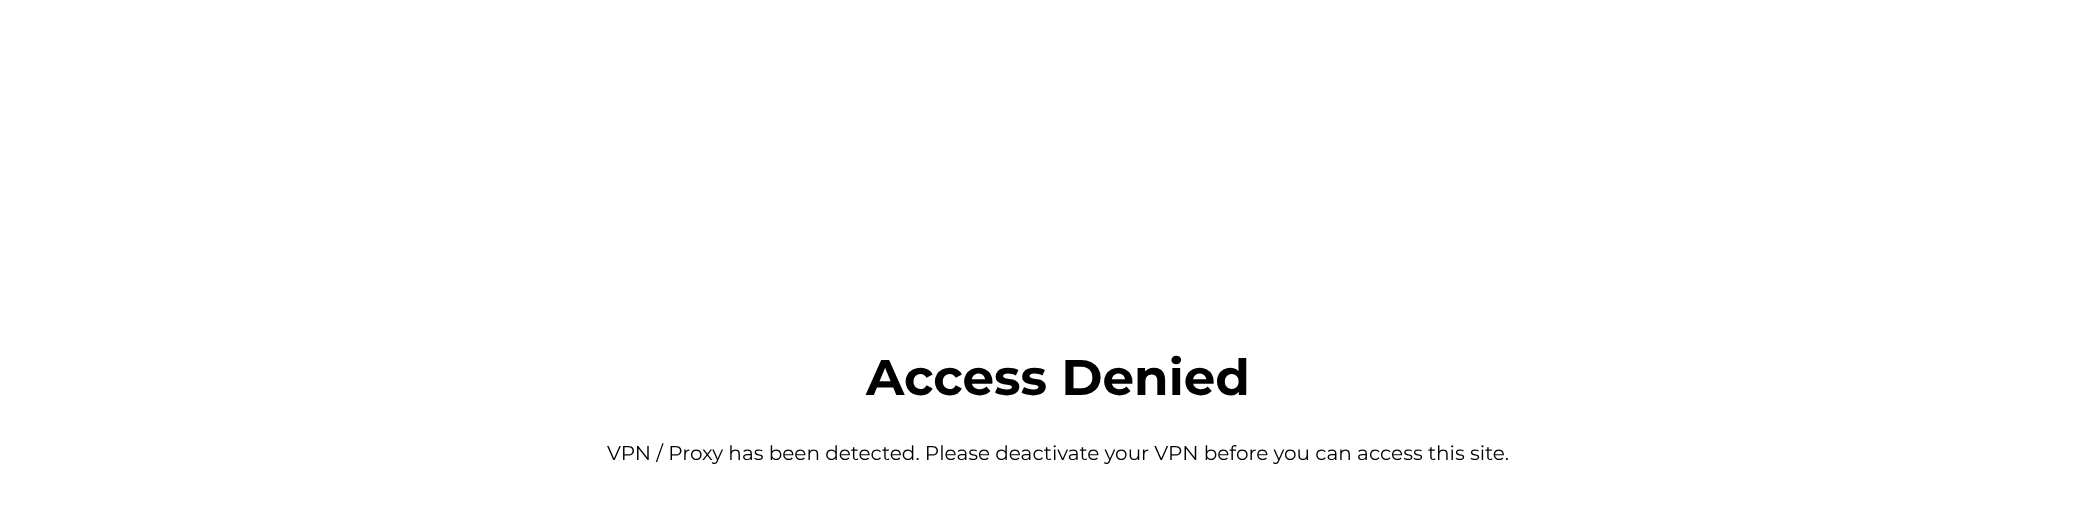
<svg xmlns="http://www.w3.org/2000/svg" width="2078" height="531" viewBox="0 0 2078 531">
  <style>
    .t1 { font: bold 50px Montserrat; fill: #000; }
    .t2 { font: 20px Montserrat; fill: #000; }
  </style>
  <rect width="100%" height="100%" fill="#fff"/>
  <text x="866" y="395" class="t1">Access Denied</text>
  <text x="607" y="460" class="t2">VPN / Proxy has been detected. Please deactivate your VPN before you can access this site.</text>
</svg>
